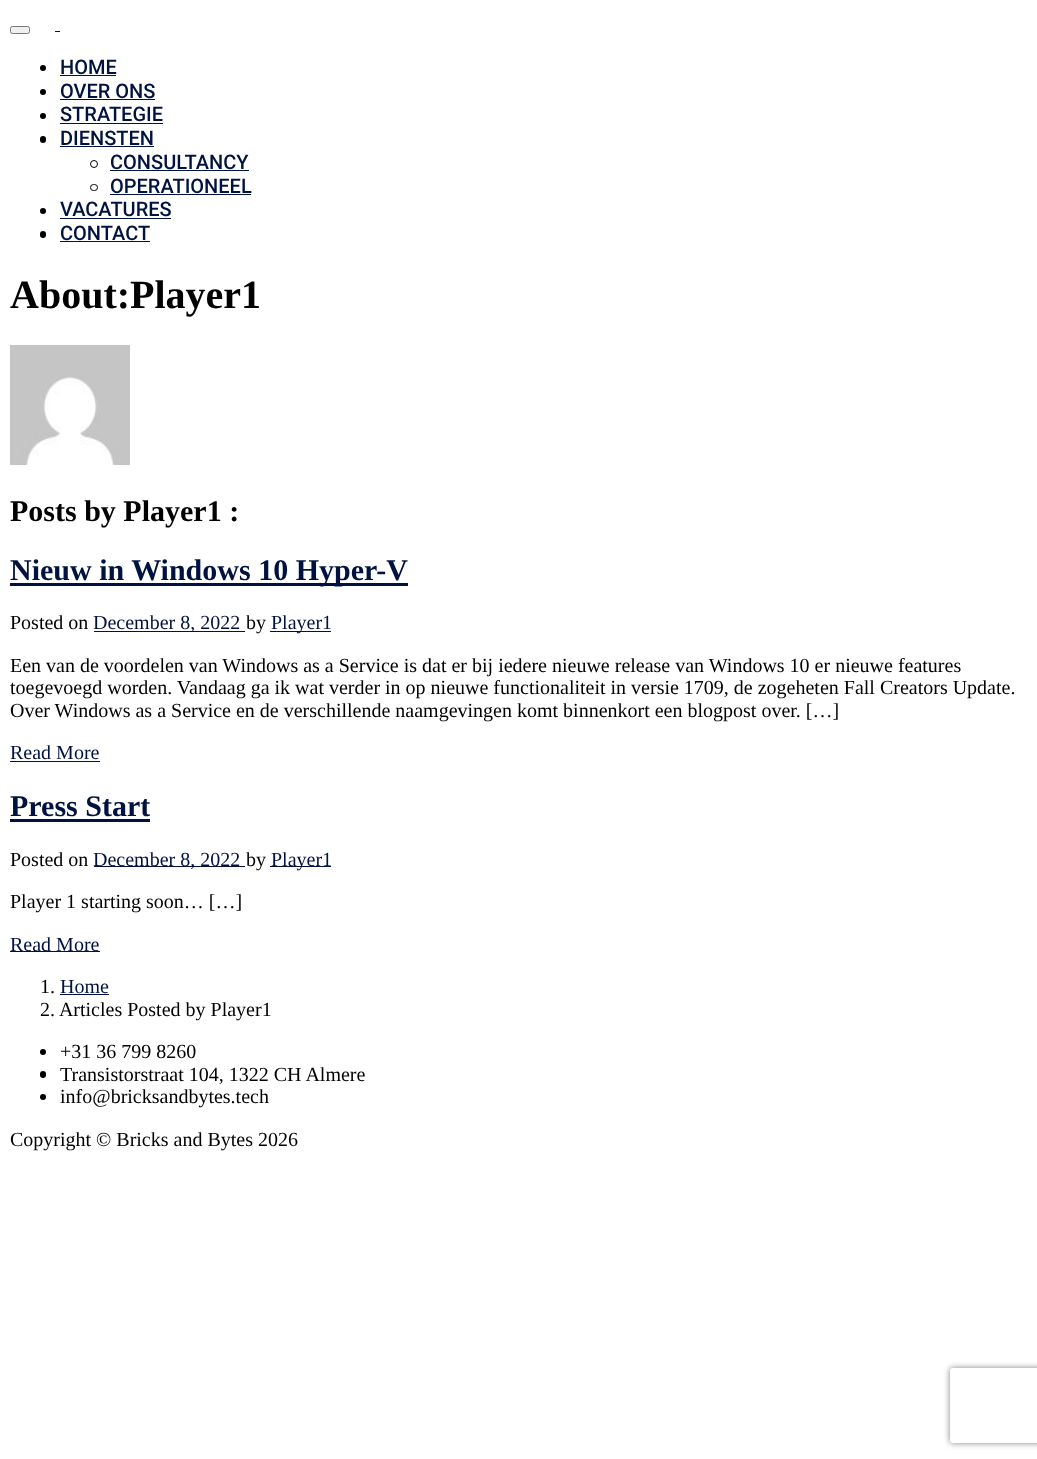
<svg xmlns="http://www.w3.org/2000/svg" width="1037" height="1459" viewBox="0 0 1037 1459">
  <style>
    .t1 { font: 500 20px Roboto; fill: #00123f; }
    .t2 { font: bold 40px Liberation Serif; fill: #000; }
    .t3 { font: bold 30px Liberation Serif; fill: #000; }
    .t4 { font: bold 30px Liberation Serif; fill: #00123f; }
    .t5 { font: 20px Liberation Serif; fill: #000; }
    .t6 { font: 20px Liberation Serif; fill: #00123f; }
  </style>
  <defs>
    <clipPath id="clip1"><path d="M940 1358H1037V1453H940ZM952.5 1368H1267.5C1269 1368 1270 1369 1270 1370.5V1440.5C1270 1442 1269 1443 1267.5 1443H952.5C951 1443 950 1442 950 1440.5V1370.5C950 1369 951 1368 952.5 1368Z" clip-rule="evenodd"/></clipPath>
  </defs>
  <rect width="100%" height="100%" fill="#fff"/>
  <rect x="10.5" y="26.5" width="19" height="7" rx="2" fill="#efefef" stroke="#767676"/>
  <rect x="55" y="31" width="5" height="1" fill="#00123f"/>
  <circle cx="43" cy="68" r="3" fill="#000"/>
  <text x="60" y="74" class="t1">HOME</text>
  <rect x="60" y="75" width="56" height="1" fill="#00123f"/>
  <circle cx="43" cy="92" r="3" fill="#000"/>
  <text x="60" y="98" class="t1">OVER ONS</text>
  <rect x="60" y="99" width="95" height="1" fill="#00123f"/>
  <circle cx="43" cy="116" r="3" fill="#000"/>
  <text x="60" y="121" class="t1">STRATEGIE</text>
  <rect x="60" y="123" width="103" height="1" fill="#00123f"/>
  <rect x="40" y="136" width="6" height="7" rx="3" fill="#000"/>
  <text x="60" y="145" class="t1">DIENSTEN</text>
  <rect x="60" y="146" width="94" height="1" fill="#00123f"/>
  <circle cx="94" cy="164" r="3.5" fill="none" stroke="#000"/>
  <text x="110" y="169" class="t1">CONSULTANCY</text>
  <rect x="110" y="170" width="139" height="1" fill="#00123f"/>
  <rect x="90.5" y="184.5" width="7" height="6" rx="3" fill="none" stroke="#000"/>
  <text x="110" y="193" class="t1">OPERATIONEEL</text>
  <rect x="110" y="194" width="141" height="1" fill="#00123f"/>
  <circle cx="43" cy="211" r="3" fill="#000"/>
  <text x="60" y="216" class="t1">VACATURES</text>
  <rect x="60" y="218" width="111" height="1" fill="#00123f"/>
  <rect x="40" y="231" width="6" height="7" rx="3" fill="#000"/>
  <text x="60" y="240" class="t1">CONTACT</text>
  <rect x="60" y="241" width="90" height="1" fill="#00123f"/>
  <text x="10" y="308" class="t2">About:Player1</text>
  <image x="10" y="345" width="120" height="120" href="images/1.png"/>
  <text x="10" y="521" class="t3">Posts by Player1 :</text>
  <rect x="10" y="583" width="398" height="3" fill="#00123f"/>
  <text x="10" y="580" class="t4">Nieuw in Windows 10 Hyper-V</text>
  <text x="10" y="629" class="t5">Posted on</text>
  <rect x="94" y="631" width="151" height="1" fill="#00123f"/>
  <text x="93" y="629" class="t6">December 8, 2022</text>
  <text x="246" y="629" class="t5">by</text>
  <rect x="270" y="631" width="61" height="1" fill="#00123f"/>
  <text x="271" y="629" class="t6">Player1</text>
  <text x="10" y="672" class="t5">Een van de voordelen van Windows as a Service is dat er bij iedere nieuwe release van Windows 10 er nieuwe features</text>
  <text x="10" y="694" class="t5">toegevoegd worden. Vandaag ga ik wat verder in op nieuwe functionaliteit in versie 1709, de zogeheten Fall Creators Update.</text>
  <text x="10" y="717" class="t5">Over Windows as a Service en de verschillende naamgevingen komt binnenkort een blogpost over. […]</text>
  <text x="10" y="759" class="t6">Read More</text>
  <rect x="10" y="761" width="90" height="1" fill="#00123f"/>
  <text x="10" y="816" class="t4">Press Start</text>
  <rect x="10" y="819" width="140" height="3" fill="#00123f"/>
  <text x="10" y="866" class="t5">Posted on</text>
  <rect x="94" y="866" width="151" height="1" fill="#00123f"/>
  <text x="93" y="866" class="t6">December 8, 2022</text>
  <text x="246" y="866" class="t5">by</text>
  <rect x="270" y="866" width="61" height="1" fill="#00123f"/>
  <text x="271" y="866" class="t6">Player1</text>
  <text x="10" y="908" class="t5">Player 1 starting soon… […]</text>
  <rect x="10" y="951" width="90" height="1" fill="#00123f"/>
  <text x="10" y="951" class="t6">Read More</text>
  <text x="40" y="993" class="t5">1.</text>
  <text x="60" y="993" class="t6">Home</text>
  <rect x="60" y="994" width="49" height="1" fill="#00123f"/>
  <text x="40" y="1016" class="t5">2. Articles Posted by Player1</text>
  <circle cx="43" cy="1052" r="3" fill="#000"/>
  <text x="60" y="1058" class="t5">+31 36 799 8260</text>
  <rect x="40" y="1071" width="6" height="7" rx="3" fill="#000"/>
  <text x="60" y="1081" class="t5">Transistorstraat 104, 1322 CH Almere</text>
  <circle cx="43" cy="1097" r="3" fill="#000"/>
  <text x="60" y="1103" class="t5">info@bricksandbytes.tech</text>
  <text x="10" y="1146" class="t5">Copyright © Bricks and Bytes 2026</text>
  <g clip-path="url(#clip1)">
    <rect x="950" y="1368" width="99" height="75" rx="2.5" fill="#808080" filter="blur(3px)"/>
  </g>
</svg>
